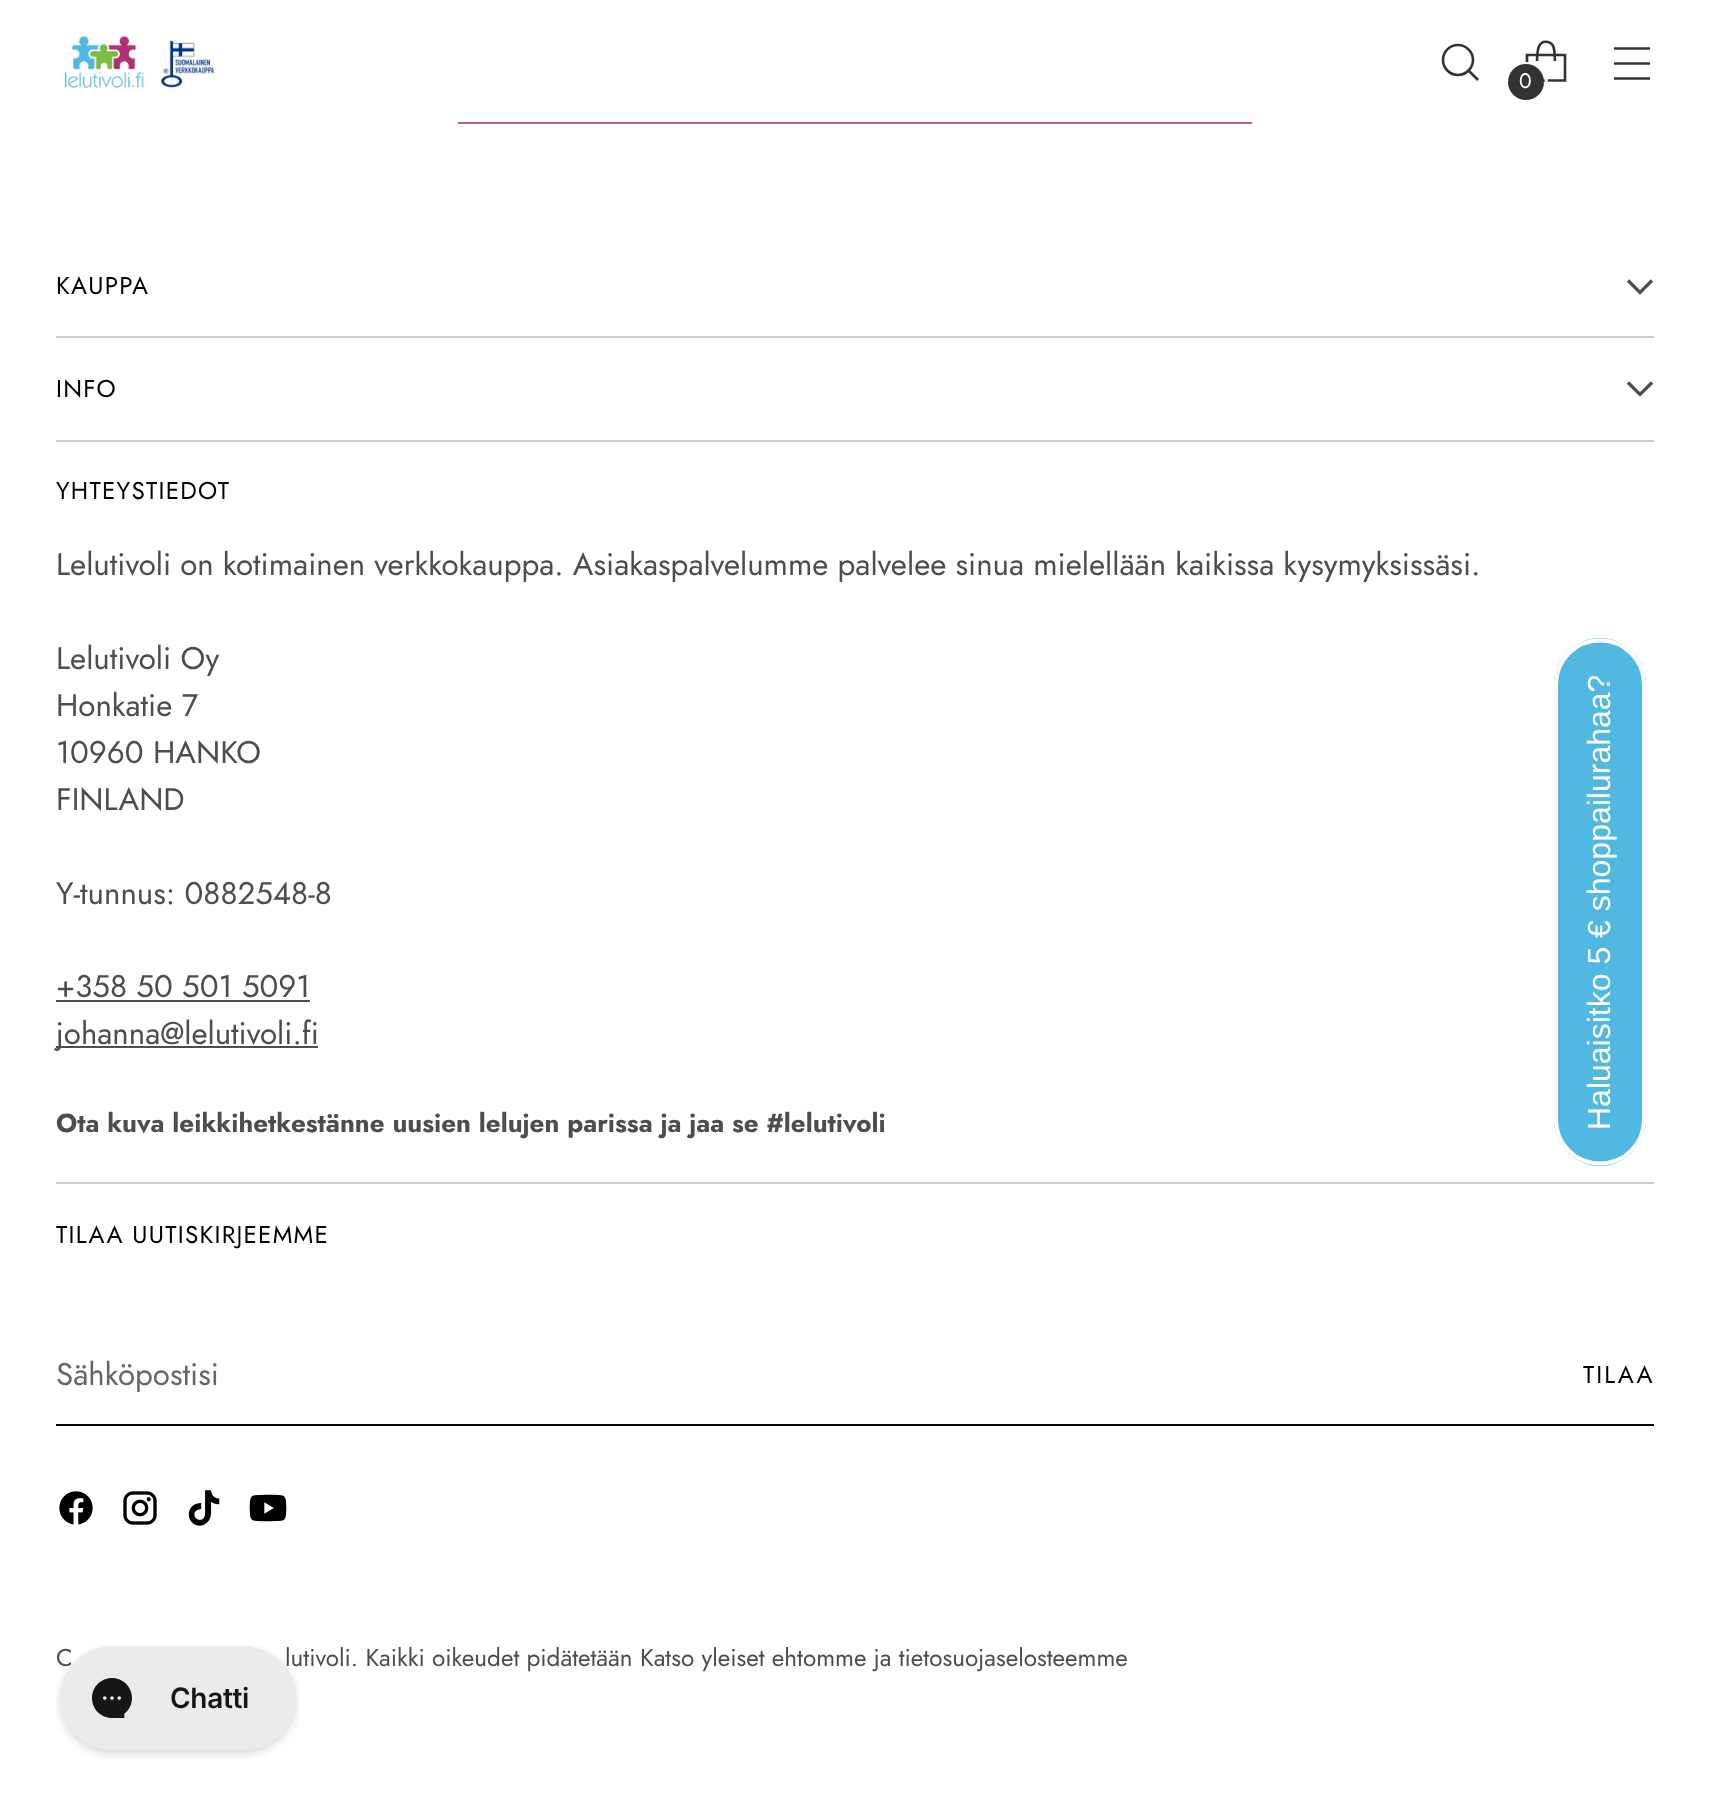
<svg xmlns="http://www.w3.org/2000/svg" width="1710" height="1804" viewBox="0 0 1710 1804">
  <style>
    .t1 { font: 21px Jost; fill: #fff; }
    .t2 { font: 24.25px Jost; letter-spacing: 1.25px; fill: #000; }
    .t3 { font: 31.25px Jost; fill: #4d4d4d; }
    .t4 { font: bold 25.95px Jost; fill: #4d4d4d; }
    .t5 { font: 31.25px Jost; fill: #666; }
    .t6 { font: 24.25px Jost; letter-spacing: 2px; fill: #000; }
    .t7 { font: 24.25px Jost; fill: #4d4d4d; }
    .t8 { font: 32px Liberation Sans; fill: #fff; }
  </style>
  <rect width="100%" height="100%" fill="#fff"/>
  <rect x="459" y="29" width="792" height="94" fill="none" stroke="#b85c91" stroke-width="2"/>
  <rect x="458" y="28" width="794" height="94" fill="#fff"/>
  <image x="64" y="35" width="151" height="53" href="images/1.png"/>
  <path d="M1458 75C1466 75 1473 68 1473 60C1473 51.5 1466 45 1458 45C1449.5 45 1443 51.5 1443 60C1443 68 1449.5 75 1458 75Z" fill="none" stroke="#333" stroke-width="2.6" stroke-linecap="round"/>
  <path d="M1468.5 70.5L1478 80" fill="none" stroke="#333" stroke-width="2.6"/>
  <path d="M1555 61C1554.5 56.5 1555 51.5 1553.5 47C1552.5 44.5 1550.5 42.5 1548 42C1536.5 39.5 1537.5 54 1537 61" fill="none" stroke="#333" stroke-width="2.6" stroke-linejoin="bevel"/>
  <path d="M1565 80.5V55H1527V80.5Z" fill="none" stroke="#333" stroke-width="2.6"/>
  <circle cx="1527" cy="83" r="19.5" fill="none" stroke="#fff" stroke-width="3"/>
  <circle cx="1526" cy="82" r="18" fill="#333"/>
  <text x="1519" y="88" class="t1">0</text>
  <path d="M1614 63.5H1650M1614 48.5H1650M1614 78.5H1650" fill="none" stroke="#333" stroke-width="2.6"/>
  <rect x="56" y="336" width="1598" height="2" fill="#ccc"/>
  <text x="56" y="294" class="t2">KAUPPA</text>
  <path d="M1628 280.5L1640 292.5L1652 280.5" fill="none" stroke="#4d4d4d" stroke-width="3.2"/>
  <rect x="56" y="440" width="1598" height="2" fill="#ccc"/>
  <text x="56" y="397" class="t2">INFO</text>
  <path d="M1628 382.5L1640 394.5L1652 382.5" fill="none" stroke="#4d4d4d" stroke-width="3.2"/>
  <rect x="56" y="1182" width="1598" height="2" fill="#ccc"/>
  <text x="56" y="499" class="t2">YHTEYSTIEDOT</text>
  <text x="56" y="575" word-spacing="-0.25" class="t3">Lelutivoli on kotimainen verkkokauppa. Asiakaspalvelumme palvelee sinua mielellään kaikissa kysymyksissäsi.</text>
  <text x="56" y="669" class="t3">Lelutivoli Oy</text>
  <text x="56" y="716" class="t3">Honkatie 7</text>
  <text x="56" y="763" class="t3">10960 HANKO</text>
  <text x="56" y="810" class="t3">FINLAND</text>
  <text x="56" y="904" class="t3">Y-tunnus: 0882548-8</text>
  <text x="56" y="997" class="t3">+358 50 501 5091</text>
  <rect x="56" y="1000" width="254" height="2" fill="#4d4d4d"/>
  <rect x="56" y="1046" width="262" height="2" fill="#4d4d4d"/>
  <text x="56" y="1044" class="t3">johanna@lelutivoli.fi</text>
  <text x="56" y="1132" class="t4">Ota kuva leikkihetkestänne uusien lelujen parissa ja jaa se #lelutivoli</text>
  <text x="56" y="1243" class="t2">TILAA UUTISKIRJEEMME</text>
  <rect x="56" y="1424" width="1598" height="2" fill="#000"/>
  <text x="56" y="1385" class="t5">Sähköpostisi</text>
  <text x="1583" y="1383" class="t6">TILAA</text>
  <image x="59" y="1491" width="34" height="34" href="images/2.png"/>
  <image x="123" y="1491" width="34" height="34" href="images/3.png"/>
  <image x="188" y="1490" width="32" height="36" href="images/4.png"/>
  <image x="249" y="1494" width="38" height="28" href="images/5.png"/>
  <text x="56" y="1666" class="t7">C</text>
  <text x="285" y="1666" class="t7">lutivoli. Kaikki oikeudet pidätetään</text>
  <text x="640" y="1666" class="t7">Katso yleiset ehtomme ja tietosuojaselosteemme</text>
  <path d="M1554 1120V684C1554 659 1575 638 1600 638C1625 638 1646 659 1646 684V1120C1646 1145 1625 1166 1600 1166C1575 1166 1554 1145 1554 1120Z" fill="#51b8e1"/>
  <path d="M1556 1119.5V684.5C1556 660 1575.5 640.5 1600 640.5C1624.5 640.5 1644 660 1644 684.5V1119.5C1644 1144 1624.5 1163.5 1600 1163.5C1575.5 1163.5 1556 1144 1556 1119.5Z" fill="none" stroke="#fff" stroke-width="4"/>
  <text x="1610" y="1130" transform="rotate(-90 1610 1130)" class="t8">Haluaisitko 5 € shoppailurahaa?</text>
  <image x="56" y="1645" width="244" height="114" href="images/6.png"/>
</svg>
